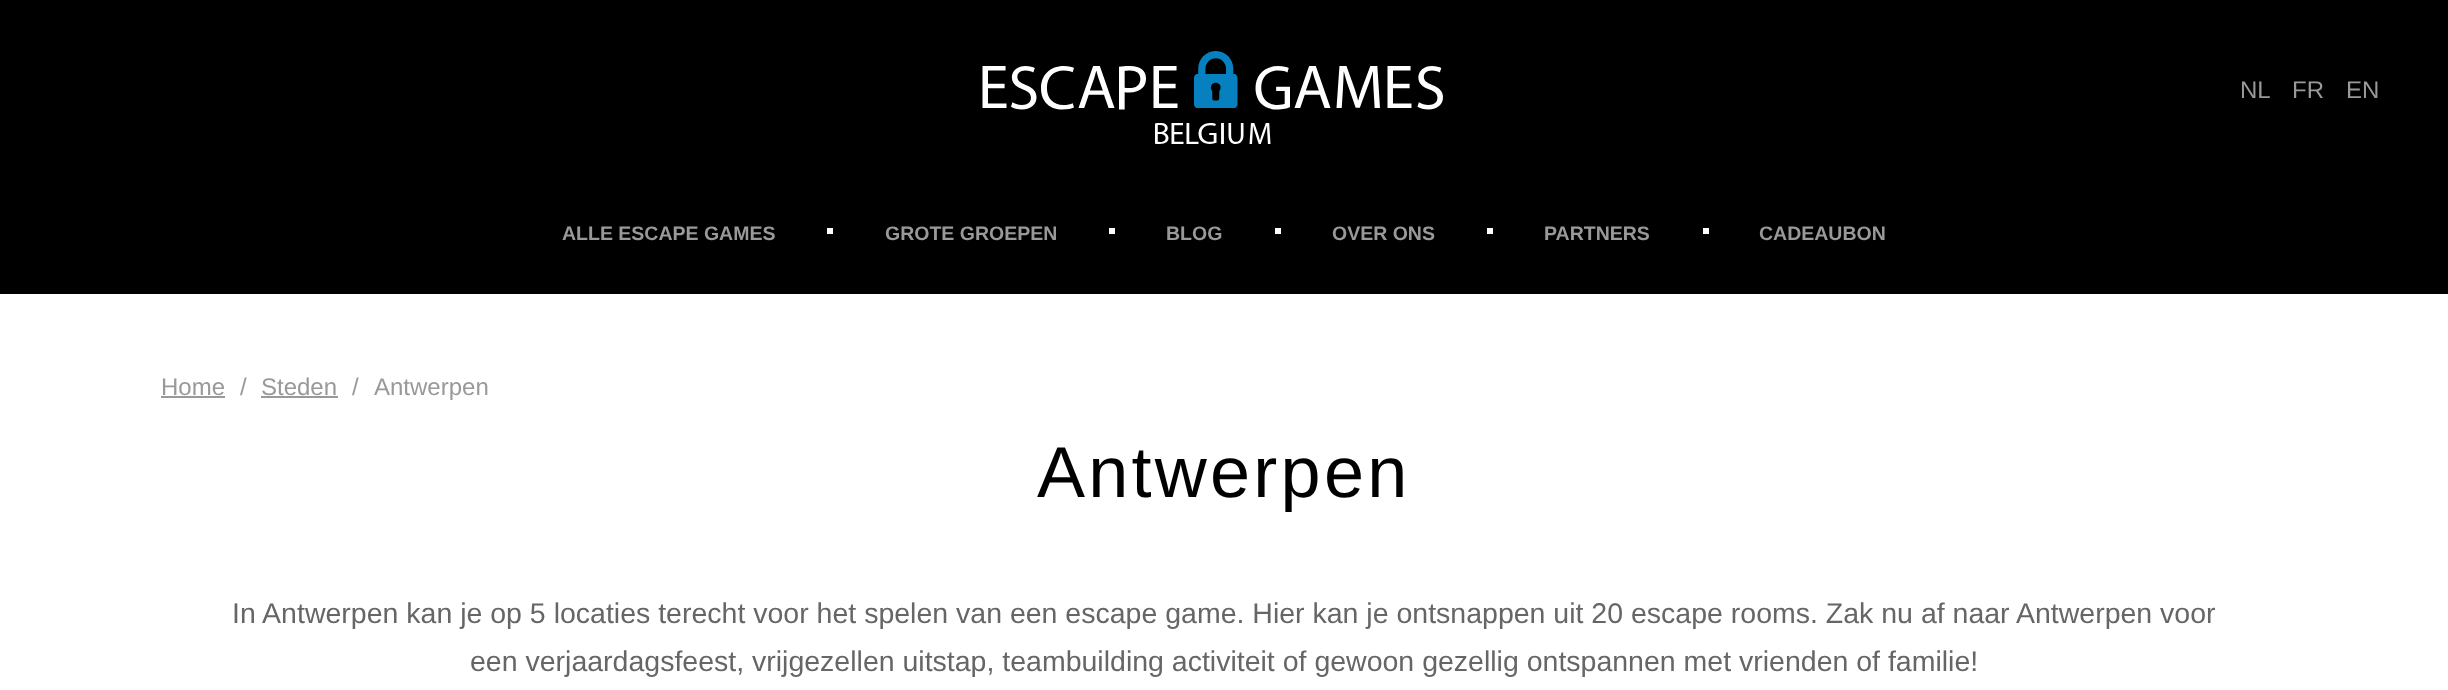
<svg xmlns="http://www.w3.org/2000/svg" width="2448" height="690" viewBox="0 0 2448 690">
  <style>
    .t1 { font: 24px Liberation Sans; fill: #999; }
    .t2 { font: bold 19.5px Liberation Sans; fill: #999; }
    .t3 { font: 72px Liberation Sans; letter-spacing: 3.25px; fill: #000; }
    .t4 { font: 28.5px Liberation Sans; fill: #666; }
  </style>
  <rect width="100%" height="100%" fill="#fff"/>
  <rect x="0" y="0" width="2448" height="294" fill="#000"/>
  <image x="982" y="51" width="461" height="93" href="images/1.png"/>
  <text x="2240" y="98" class="t1">NL</text>
  <text x="2292" y="98" class="t1">FR</text>
  <text x="2346" y="98" class="t1">EN</text>
  <text x="562" y="240" class="t2">ALLE ESCAPE GAMES</text>
  <rect x="827" y="228" width="6" height="6" fill="#fff"/>
  <text x="885" y="240" class="t2">GROTE GROEPEN</text>
  <rect x="1109" y="228" width="6" height="6" fill="#fff"/>
  <text x="1166" y="240" class="t2">BLOG</text>
  <rect x="1275" y="228" width="6" height="6" fill="#fff"/>
  <text x="1332" y="240" class="t2">OVER ONS</text>
  <rect x="1487" y="228" width="6" height="6" fill="#fff"/>
  <text x="1544" y="240" class="t2">PARTNERS</text>
  <rect x="1703" y="228" width="6" height="6" fill="#fff"/>
  <text x="1759" y="240" class="t2">CADEAUBON</text>
  <text x="161" y="395" class="t1">Home</text>
  <rect x="161" y="396" width="64" height="2" fill="#999"/>
  <text x="240" y="395" class="t1">/</text>
  <text x="261" y="395" class="t1">Steden</text>
  <rect x="261" y="396" width="77" height="2" fill="#999"/>
  <text x="352" y="395" class="t1">/</text>
  <text x="374" y="395" class="t1">Antwerpen</text>
  <text x="1037" y="497" class="t3">Antwerpen</text>
  <text x="232" y="623" class="t4">In Antwerpen kan je op 5 locaties terecht voor het spelen van een escape game. Hier kan je ontsnappen uit 20 escape rooms. Zak nu af naar Antwerpen voor</text>
  <text x="470" y="671" class="t4">een verjaardagsfeest, vrijgezellen uitstap, teambuilding activiteit of gewoon gezellig ontspannen met vrienden of familie!</text>
</svg>
